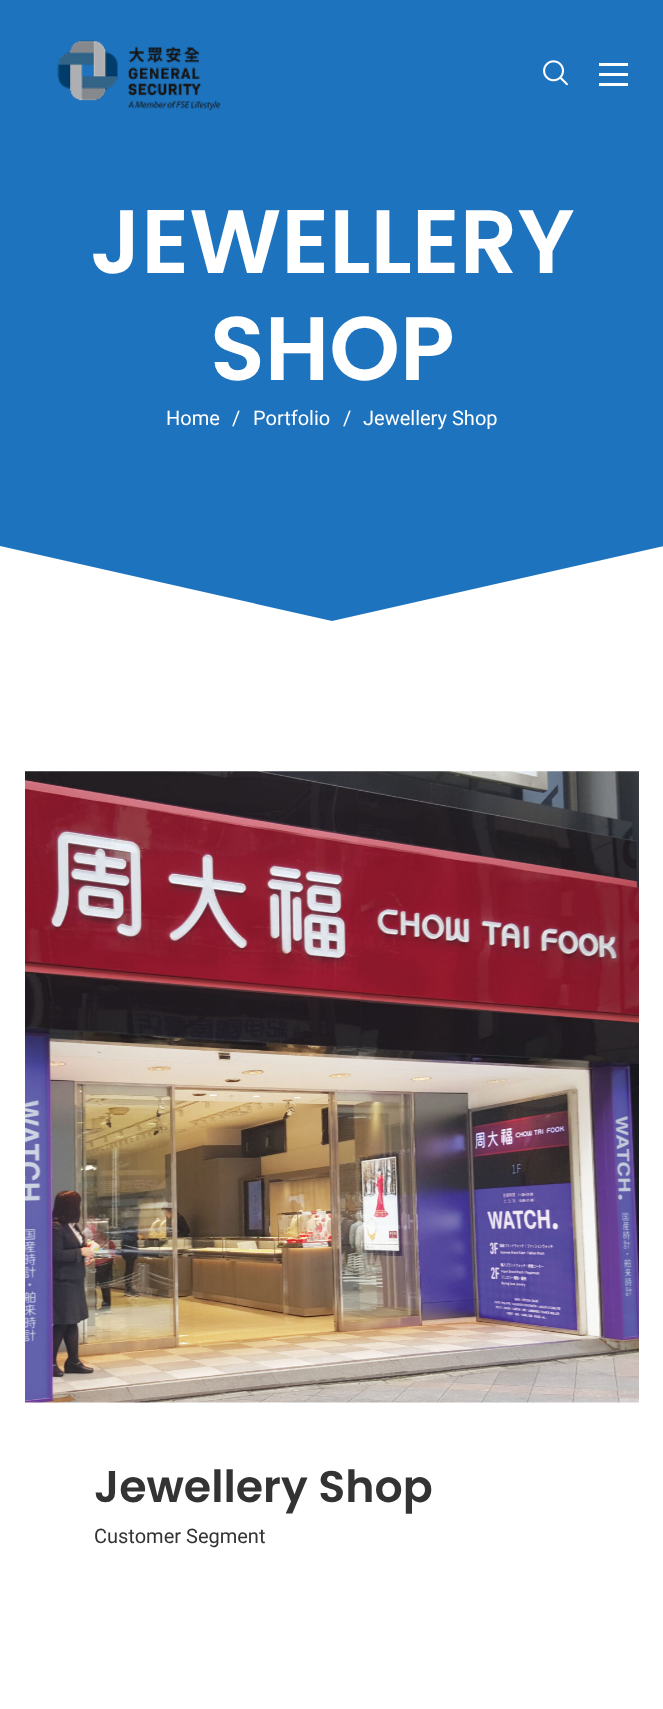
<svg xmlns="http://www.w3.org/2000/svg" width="663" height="1709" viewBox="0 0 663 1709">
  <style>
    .t1 { font: 600 90px Poppins; fill: #fff; }
    .t2 { font: 20px Roboto; fill: #fff; }
    .t3 { font: 600 44.25px Poppins; fill: #333; }
    .t4 { font: 20px Roboto; fill: #333; }
  </style>
  <rect width="100%" height="100%" fill="#fff"/>
  <path d="M0 0V546L332 621L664 546V0Z" fill="#1e73be"/>
  <image x="57" y="40" width="164" height="71" href="images/1.png"/>
  <image x="543" y="60" width="25" height="26" href="images/2.png"/>
  <rect x="599" y="73" width="29" height="3" fill="#fff"/>
  <rect x="599" y="63" width="29" height="3" fill="#fff"/>
  <rect x="599" y="83" width="29" height="3" fill="#fff"/>
  <text x="90" y="273" class="t1">JEWELLERY</text>
  <text x="210" y="380" class="t1">SHOP</text>
  <text x="166" y="425" class="t2">Home</text>
  <text x="232" y="425" class="t2">/</text>
  <text x="253" y="425" class="t2">Portfolio</text>
  <text x="343" y="425" class="t2">/</text>
  <text x="363" y="425" class="t2">Jewellery Shop</text>
  <image x="25" y="771" width="614" height="632" href="images/3.png"/>
  <text x="94" y="1502" class="t3">Jewellery Shop</text>
  <text x="94" y="1543" class="t4">Customer Segment</text>
</svg>
